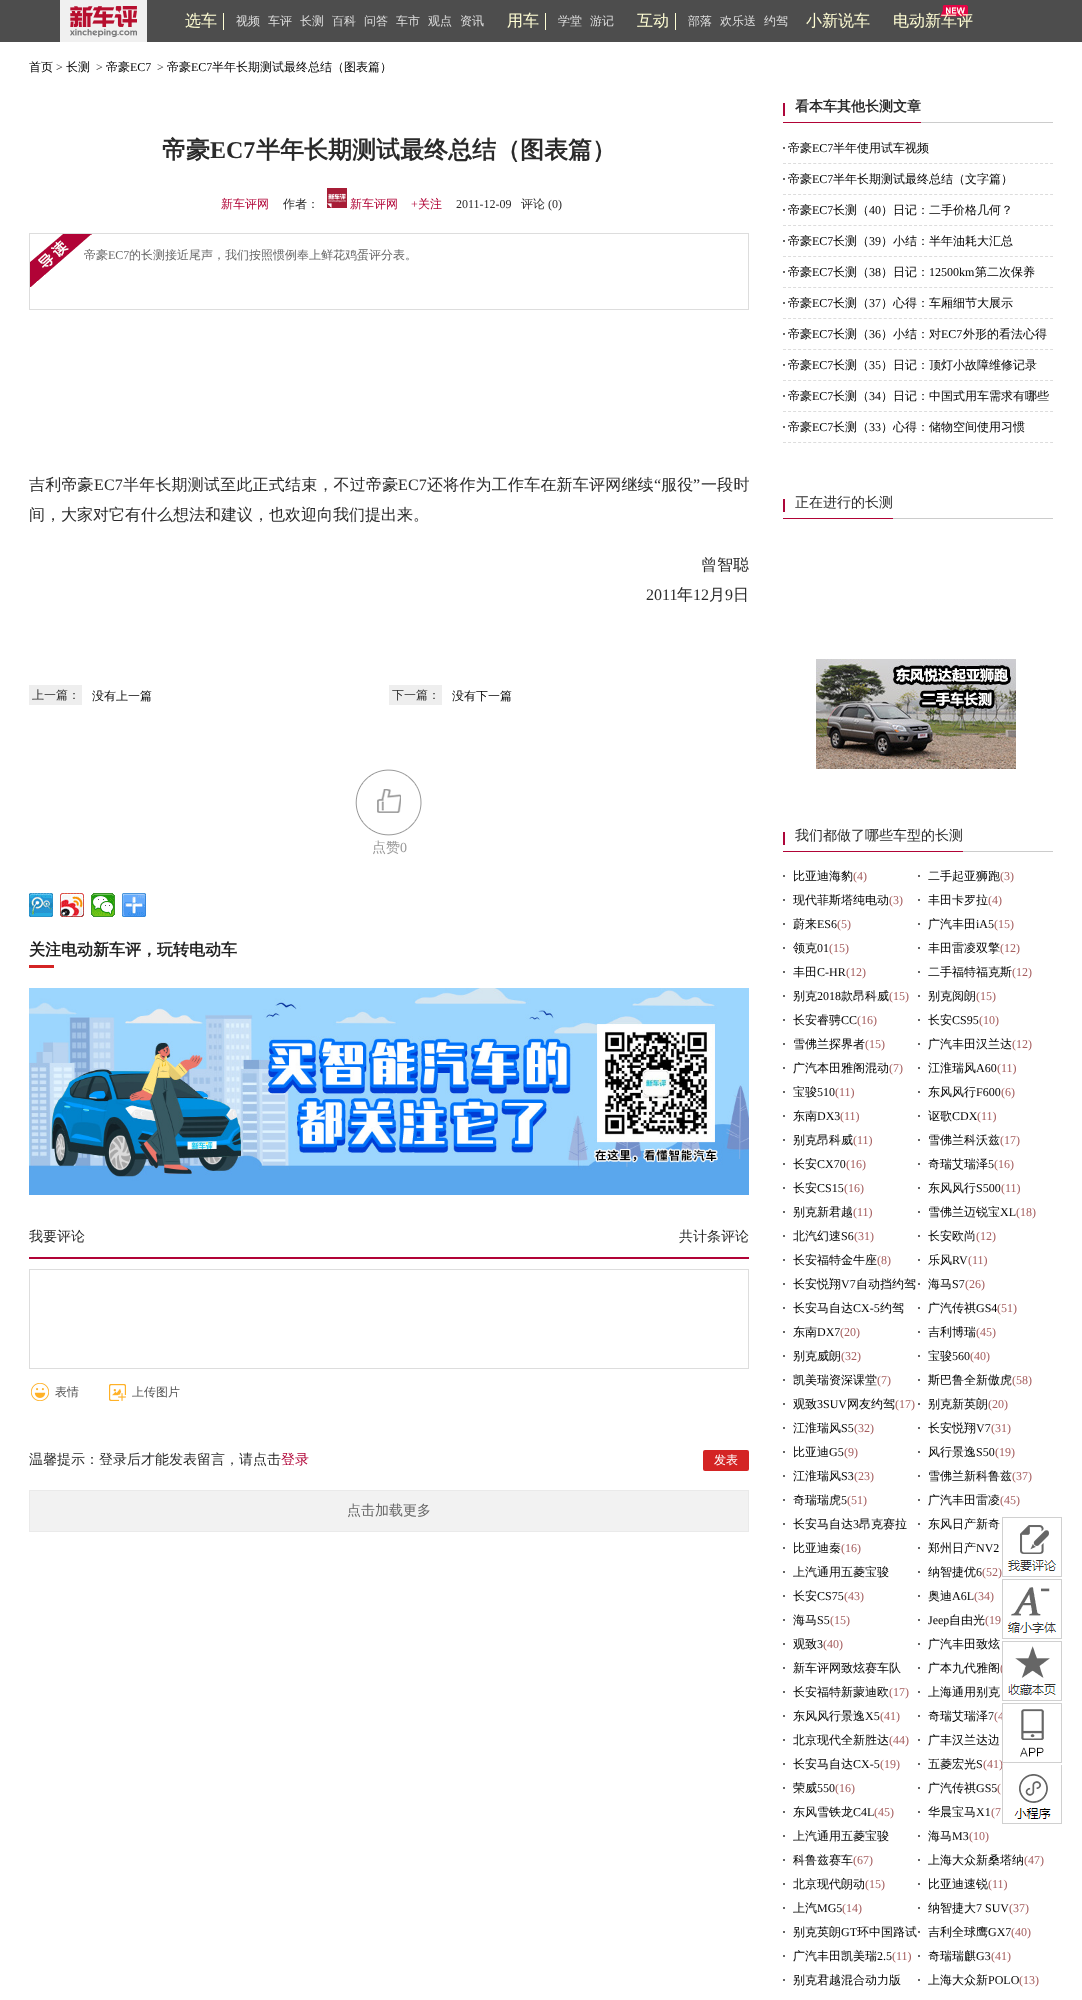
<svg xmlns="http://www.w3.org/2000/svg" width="1082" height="2000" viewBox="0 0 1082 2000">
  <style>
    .t1 { font: 500 16px WenQuanYi Zen Hei; fill: #fffed4; }
    .t2 { font: 500 12px WenQuanYi Zen Hei; fill: #ddd; }
    .t3 { font: 500 12px WenQuanYi Zen Hei; fill: #000; }
    .t4 { font: 12px Liberation Serif; fill: #2a2a2a; }
    .t5 { font: 12px Liberation Serif; fill: #000; }
    .t6 { font: bold 24px WenQuanYi Zen Hei; fill: #2a2a2a; }
    .t7 { font: bold 24px Liberation Serif; fill: #2a2a2a; }
    .t8 { font: 500 12px WenQuanYi Zen Hei; fill: #b10336; }
    .t9 { font: 500 12px WenQuanYi Zen Hei; fill: #2a2a2a; }
    .t10 { font: 12px Liberation Serif; fill: #b10336; }
    .t11 { font: 500 12px WenQuanYi Zen Hei; fill: #666; }
    .t12 { font: 12px Liberation Serif; fill: #666; }
    .t13 { font: 500 16px WenQuanYi Zen Hei; letter-spacing: 0.2px; fill: #2a2a2a; }
    .t14 { font: 16px Liberation Serif; letter-spacing: 0.2px; fill: #2a2a2a; }
    .t15 { font: 500 16px WenQuanYi Zen Hei; fill: #2a2a2a; }
    .t16 { font: 16px Liberation Serif; fill: #2a2a2a; }
    .t17 { font: 500 14px WenQuanYi Zen Hei; fill: #999; }
    .t18 { font: 14px Liberation Serif; fill: #999; }
    .t19 { font: bold 16px WenQuanYi Zen Hei; fill: #212121; }
    .t20 { font: 500 14px WenQuanYi Zen Hei; fill: #2a2a2a; }
    .t21 { font: 500 12px WenQuanYi Zen Hei; fill: #535353; }
    .t22 { font: 500 14px WenQuanYi Zen Hei; fill: #b10336; }
    .t23 { font: 500 12px WenQuanYi Zen Hei; fill: #fff; }
    .t24 { font: 500 14px WenQuanYi Zen Hei; fill: #666; }
    .t25 { font: bold 14px WenQuanYi Zen Hei; fill: #2a2a2a; }
    .t26 { font: 12px Liberation Serif; fill: #a45c5d; }
  </style>
  <rect width="100%" height="100%" fill="#fff"/>
  <rect x="0" y="0" width="1082" height="42" fill="#4d4d4d"/>
  <image x="60" y="0" width="87" height="42" href="images/1.png"/>
  <rect x="223" y="13" width="1" height="17" fill="#fffed4"/>
  <text x="185" y="26" class="t1">选车</text>
  <text x="236" y="25" class="t2">视频</text>
  <text x="268" y="25" class="t2">车评</text>
  <text x="300" y="25" class="t2">长测</text>
  <text x="332" y="25" class="t2">百科</text>
  <text x="364" y="25" class="t2">问答</text>
  <text x="396" y="25" class="t2">车市</text>
  <text x="428" y="25" class="t2">观点</text>
  <text x="460" y="25" class="t2">资讯</text>
  <rect x="545" y="13" width="1" height="17" fill="#fffed4"/>
  <text x="507" y="26" class="t1">用车</text>
  <text x="558" y="25" class="t2">学堂</text>
  <text x="590" y="25" class="t2">游记</text>
  <rect x="675" y="13" width="1" height="17" fill="#fffed4"/>
  <text x="637" y="26" class="t1">互动</text>
  <text x="688" y="25" class="t2">部落</text>
  <text x="720" y="25" class="t2">欢乐送</text>
  <text x="764" y="25" class="t2">约驾</text>
  <text x="806" y="26" class="t1">小新说车</text>
  <image x="940" y="5" width="28" height="12" href="images/2.png"/>
  <text x="893" y="26" class="t1">电动新车评</text>
  <text x="29" y="71" class="t3">首页</text>
  <text x="56" y="71" class="t4">&gt;</text>
  <text x="66" y="71" class="t3">长测</text>
  <text x="96" y="71" class="t4">&gt;</text>
  <text x="106" y="71" class="t3">帝豪</text>
  <text x="130" y="71" class="t5">EC7</text>
  <text x="157" y="71" class="t4">&gt;</text>
  <text x="167" y="71" class="t3">帝豪</text>
  <text x="191" y="71" class="t5">EC7</text>
  <text x="212" y="71" class="t3">半年长期测试最终总结（图表篇）</text>
  <text x="162" y="158" class="t6">帝豪</text>
  <text x="210" y="158" class="t7">EC7</text>
  <text x="256" y="158" class="t6">半年长期测试最终总结（图表篇）</text>
  <text x="221" y="208" class="t8">新车评网</text>
  <text x="283" y="208" class="t9">作者：</text>
  <image x="327" y="188" width="20" height="20" href="images/3.png"/>
  <text x="350" y="208" class="t8">新车评网</text>
  <text x="411" y="208" class="t10">+</text>
  <text x="418" y="208" class="t8">关注</text>
  <text x="456" y="208" class="t4">2011-12-09</text>
  <text x="521" y="208" class="t9">评论</text>
  <text x="548" y="208" class="t4">(0)</text>
  <image x="30" y="234" width="62" height="53" href="images/4.png"/>
  <rect x="29.5" y="233.5" width="719" height="76" fill="none" stroke="#ddd"/>
  <text x="84" y="259" class="t11">帝豪</text>
  <text x="108" y="259" class="t12">EC7</text>
  <text x="129" y="259" class="t11">的长测接近尾声，我们按照惯例奉上鲜花鸡蛋评分表。</text>
  <text x="29" y="490" class="t13">吉利帝豪</text>
  <text x="94" y="490" class="t14">EC7</text>
  <text x="123" y="490" class="t13">半年长期测试至此正式结束，不过帝豪</text>
  <text x="398" y="490" class="t14">EC7</text>
  <text x="427" y="490" class="t13">还将作为工作车在新车评网继续</text>
  <text x="654" y="490" class="t14">“</text>
  <text x="661" y="490" class="t13">服役</text>
  <text x="693" y="490" class="t14">”</text>
  <text x="701" y="490" class="t13">一段时</text>
  <text x="29" y="520" class="t15">间，大家对它有什么想法和建议，也欢迎向我们提出来。</text>
  <text x="701" y="570" class="t15">曾智聪</text>
  <text x="646" y="600" class="t16">2011</text>
  <text x="677" y="600" class="t15">年</text>
  <text x="693" y="600" class="t16">12</text>
  <text x="709" y="600" class="t15">月</text>
  <text x="725" y="600" class="t16">9</text>
  <text x="733" y="600" class="t15">日</text>
  <rect x="29" y="685" width="53" height="20" fill="#eee"/>
  <text x="32" y="699" class="t9">上一篇：</text>
  <text x="92" y="700" class="t3">没有上一篇</text>
  <rect x="389" y="685" width="53" height="20" fill="#eee"/>
  <text x="392" y="699" class="t9">下一篇：</text>
  <text x="452" y="700" class="t3">没有下一篇</text>
  <image x="355" y="769" width="67" height="73" href="images/5.png"/>
  <text x="372" y="852" class="t17">点赞</text>
  <text x="400" y="852" class="t18">0</text>
  <image x="29" y="893" width="24" height="24" href="images/6.png"/>
  <image x="60" y="893" width="24" height="24" href="images/7.png"/>
  <image x="91" y="893" width="24" height="24" href="images/8.png"/>
  <image x="122" y="893" width="24" height="24" href="images/9.png"/>
  <text x="29" y="955" class="t19">关注电动新车评，玩转电动车</text>
  <rect x="29" y="965" width="25" height="3" fill="#d42424"/>
  <image x="29" y="988" width="720" height="207" href="images/10.png"/>
  <rect x="29" y="1257" width="720" height="2" fill="#b10336"/>
  <text x="29" y="1241" class="t20">我要评论</text>
  <text x="679" y="1241" class="t20">共计条评论</text>
  <rect x="29.5" y="1269.5" width="719" height="99" fill="none" stroke="#ddd"/>
  <image x="31" y="1383" width="18" height="18" href="images/11.png"/>
  <text x="55" y="1396" class="t21">表情</text>
  <image x="109" y="1384" width="17" height="17" href="images/12.png"/>
  <text x="132" y="1396" class="t21">上传图片</text>
  <text x="29" y="1464" class="t20">温馨提示：登录后才能发表留言，请点击</text>
  <text x="281" y="1464" class="t22">登录</text>
  <rect x="703" y="1450" width="46" height="21" rx="2" fill="#d42424"/>
  <text x="714" y="1464" class="t23">发表</text>
  <rect x="29.5" y="1490.5" width="719" height="41" fill="#f2f2f2" stroke="#eaeaea"/>
  <text x="347" y="1515" class="t24">点击加载更多</text>
  <rect x="921" y="122" width="132" height="1" fill="#ccc"/>
  <rect x="783" y="103" width="2" height="13" fill="#ad063a"/>
  <rect x="783" y="122" width="138" height="1" fill="#b10336"/>
  <text x="795" y="111" class="t25">看本车其他长测文章</text>
  <rect x="783" y="147" width="2" height="2" fill="#666"/>
  <path d="M783 163.5H1053" fill="none" stroke="#ddd" stroke-dasharray="3 2.04"/>
  <text x="788" y="152" class="t3">帝豪</text>
  <text x="812" y="152" class="t5">EC7</text>
  <text x="833" y="152" class="t3">半年使用试车视频</text>
  <rect x="783" y="178" width="2" height="2" fill="#666"/>
  <path d="M783 194.5H1053" fill="none" stroke="#ddd" stroke-dasharray="3 2.04"/>
  <text x="788" y="183" class="t3">帝豪</text>
  <text x="812" y="183" class="t5">EC7</text>
  <text x="833" y="183" class="t3">半年长期测试最终总结（文字篇）</text>
  <rect x="783" y="209" width="2" height="2" fill="#666"/>
  <path d="M783 225.5H1053" fill="none" stroke="#ddd" stroke-dasharray="3 2.04"/>
  <text x="788" y="214" class="t3">帝豪</text>
  <text x="812" y="214" class="t5">EC7</text>
  <text x="833" y="214" class="t3">长测（</text>
  <text x="869" y="214" class="t5">40</text>
  <text x="881" y="214" class="t3">）日记：二手价格几何？</text>
  <rect x="783" y="240" width="2" height="2" fill="#666"/>
  <path d="M783 256.5H1053" fill="none" stroke="#ddd" stroke-dasharray="3 2.04"/>
  <text x="788" y="245" class="t3">帝豪</text>
  <text x="812" y="245" class="t5">EC7</text>
  <text x="833" y="245" class="t3">长测（</text>
  <text x="869" y="245" class="t5">39</text>
  <text x="881" y="245" class="t3">）小结：半年油耗大汇总</text>
  <rect x="783" y="271" width="2" height="2" fill="#666"/>
  <path d="M783 287.5H1053" fill="none" stroke="#ddd" stroke-dasharray="3 2.04"/>
  <text x="788" y="276" class="t3">帝豪</text>
  <text x="812" y="276" class="t5">EC7</text>
  <text x="833" y="276" class="t3">长测（</text>
  <text x="869" y="276" class="t5">38</text>
  <text x="881" y="276" class="t3">）日记：</text>
  <text x="929" y="276" class="t5">12500km</text>
  <text x="975" y="276" class="t3">第二次保养</text>
  <rect x="783" y="302" width="2" height="2" fill="#666"/>
  <path d="M783 318.5H1053" fill="none" stroke="#ddd" stroke-dasharray="3 2.04"/>
  <text x="788" y="307" class="t3">帝豪</text>
  <text x="812" y="307" class="t5">EC7</text>
  <text x="833" y="307" class="t3">长测（</text>
  <text x="869" y="307" class="t5">37</text>
  <text x="881" y="307" class="t3">）心得：车厢细节大展示</text>
  <rect x="783" y="333" width="2" height="2" fill="#666"/>
  <path d="M783 349.5H1053" fill="none" stroke="#ddd" stroke-dasharray="3 2.04"/>
  <text x="788" y="338" class="t3">帝豪</text>
  <text x="812" y="338" class="t5">EC7</text>
  <text x="833" y="338" class="t3">长测（</text>
  <text x="869" y="338" class="t5">36</text>
  <text x="881" y="338" class="t3">）小结：对</text>
  <text x="941" y="338" class="t5">EC7</text>
  <text x="963" y="338" class="t3">外形的看法心得</text>
  <rect x="783" y="364" width="2" height="2" fill="#666"/>
  <path d="M783 380.5H1053" fill="none" stroke="#ddd" stroke-dasharray="3 2.04"/>
  <text x="788" y="369" class="t3">帝豪</text>
  <text x="812" y="369" class="t5">EC7</text>
  <text x="833" y="369" class="t3">长测（</text>
  <text x="869" y="369" class="t5">35</text>
  <text x="881" y="369" class="t3">）日记：顶灯小故障维修记录</text>
  <rect x="783" y="395" width="2" height="2" fill="#666"/>
  <path d="M783 411.5H1053" fill="none" stroke="#ddd" stroke-dasharray="3 2.04"/>
  <text x="788" y="400" class="t3">帝豪</text>
  <text x="812" y="400" class="t5">EC7</text>
  <text x="833" y="400" class="t3">长测（</text>
  <text x="869" y="400" class="t5">34</text>
  <text x="881" y="400" class="t3">）日记：中国式用车需求有哪些</text>
  <rect x="783" y="426" width="2" height="2" fill="#666"/>
  <path d="M783 442.5H1053" fill="none" stroke="#ddd" stroke-dasharray="3 2.04"/>
  <text x="788" y="431" class="t3">帝豪</text>
  <text x="812" y="431" class="t5">EC7</text>
  <text x="833" y="431" class="t3">长测（</text>
  <text x="869" y="431" class="t5">33</text>
  <text x="881" y="431" class="t3">）心得：储物空间使用习惯</text>
  <rect x="893" y="518" width="160" height="1" fill="#ccc"/>
  <rect x="783" y="499" width="2" height="13" fill="#ad063a"/>
  <rect x="783" y="518" width="110" height="1" fill="#b10336"/>
  <text x="795" y="507" class="t20">正在进行的长测</text>
  <image x="816" y="659" width="200" height="110" href="images/13.png"/>
  <rect x="963" y="851" width="90" height="1" fill="#ccc"/>
  <rect x="783" y="832" width="2" height="13" fill="#ad063a"/>
  <rect x="783" y="851" width="180" height="1" fill="#b10336"/>
  <text x="795" y="840" class="t20">我们都做了哪些车型的长测</text>
  <rect x="783" y="875" width="2" height="2" fill="#666"/>
  <text x="793" y="880" class="t3">比亚迪海豹</text>
  <text x="853" y="880" class="t26">(4)</text>
  <rect x="918" y="875" width="2" height="2" fill="#666"/>
  <text x="928" y="880" class="t3">二手起亚狮跑</text>
  <text x="1000" y="880" class="t26">(3)</text>
  <rect x="783" y="899" width="2" height="2" fill="#666"/>
  <text x="793" y="904" class="t3">现代菲斯塔纯电动</text>
  <text x="889" y="904" class="t26">(3)</text>
  <rect x="918" y="899" width="2" height="2" fill="#666"/>
  <text x="928" y="904" class="t3">丰田卡罗拉</text>
  <text x="988" y="904" class="t26">(4)</text>
  <rect x="783" y="923" width="2" height="2" fill="#666"/>
  <text x="793" y="928" class="t3">蔚来</text>
  <text x="817" y="928" class="t5">ES6</text>
  <text x="837" y="928" class="t26">(5)</text>
  <rect x="918" y="923" width="2" height="2" fill="#666"/>
  <text x="928" y="928" class="t3">广汽丰田</text>
  <text x="976" y="928" class="t5">iA5</text>
  <text x="994" y="928" class="t26">(15)</text>
  <rect x="783" y="947" width="2" height="2" fill="#666"/>
  <text x="793" y="952" class="t3">领克</text>
  <text x="817" y="952" class="t5">01</text>
  <text x="829" y="952" class="t26">(15)</text>
  <rect x="918" y="947" width="2" height="2" fill="#666"/>
  <text x="928" y="952" class="t3">丰田雷凌双擎</text>
  <text x="1000" y="952" class="t26">(12)</text>
  <rect x="783" y="971" width="2" height="2" fill="#666"/>
  <text x="793" y="976" class="t3">丰田</text>
  <text x="817" y="976" class="t5">C-HR</text>
  <text x="846" y="976" class="t26">(12)</text>
  <rect x="918" y="971" width="2" height="2" fill="#666"/>
  <text x="928" y="976" class="t3">二手福特福克斯</text>
  <text x="1012" y="976" class="t26">(12)</text>
  <rect x="783" y="995" width="2" height="2" fill="#666"/>
  <text x="793" y="1000" class="t3">别克</text>
  <text x="817" y="1000" class="t5">2018</text>
  <text x="841" y="1000" class="t3">款昂科威</text>
  <text x="889" y="1000" class="t26">(15)</text>
  <rect x="918" y="995" width="2" height="2" fill="#666"/>
  <text x="928" y="1000" class="t3">别克阅朗</text>
  <text x="976" y="1000" class="t26">(15)</text>
  <rect x="783" y="1019" width="2" height="2" fill="#666"/>
  <text x="793" y="1024" class="t3">长安睿骋</text>
  <text x="841" y="1024" class="t5">CC</text>
  <text x="857" y="1024" class="t26">(16)</text>
  <rect x="918" y="1019" width="2" height="2" fill="#666"/>
  <text x="928" y="1024" class="t3">长安</text>
  <text x="952" y="1024" class="t5">CS95</text>
  <text x="979" y="1024" class="t26">(10)</text>
  <rect x="783" y="1043" width="2" height="2" fill="#666"/>
  <text x="793" y="1048" class="t3">雪佛兰探界者</text>
  <text x="865" y="1048" class="t26">(15)</text>
  <rect x="918" y="1043" width="2" height="2" fill="#666"/>
  <text x="928" y="1048" class="t3">广汽丰田汉兰达</text>
  <text x="1012" y="1048" class="t26">(12)</text>
  <rect x="783" y="1067" width="2" height="2" fill="#666"/>
  <text x="793" y="1072" class="t3">广汽本田雅阁混动</text>
  <text x="889" y="1072" class="t26">(7)</text>
  <rect x="918" y="1067" width="2" height="2" fill="#666"/>
  <text x="928" y="1072" class="t3">江淮瑞风</text>
  <text x="976" y="1072" class="t5">A60</text>
  <text x="997" y="1072" class="t26">(11)</text>
  <rect x="783" y="1091" width="2" height="2" fill="#666"/>
  <text x="793" y="1096" class="t3">宝骏</text>
  <text x="817" y="1096" class="t5">510</text>
  <text x="835" y="1096" class="t26">(11)</text>
  <rect x="918" y="1091" width="2" height="2" fill="#666"/>
  <text x="928" y="1096" class="t3">东风风行</text>
  <text x="976" y="1096" class="t5">F600</text>
  <text x="1001" y="1096" class="t26">(6)</text>
  <rect x="783" y="1115" width="2" height="2" fill="#666"/>
  <text x="793" y="1120" class="t3">东南</text>
  <text x="817" y="1120" class="t5">DX3</text>
  <text x="840" y="1120" class="t26">(11)</text>
  <rect x="918" y="1115" width="2" height="2" fill="#666"/>
  <text x="928" y="1120" class="t3">讴歌</text>
  <text x="952" y="1120" class="t5">CDX</text>
  <text x="977" y="1120" class="t26">(11)</text>
  <rect x="783" y="1139" width="2" height="2" fill="#666"/>
  <text x="793" y="1144" class="t3">别克昂科威</text>
  <text x="853" y="1144" class="t26">(11)</text>
  <rect x="918" y="1139" width="2" height="2" fill="#666"/>
  <text x="928" y="1144" class="t3">雪佛兰科沃兹</text>
  <text x="1000" y="1144" class="t26">(17)</text>
  <rect x="783" y="1163" width="2" height="2" fill="#666"/>
  <text x="793" y="1168" class="t3">长安</text>
  <text x="817" y="1168" class="t5">CX70</text>
  <text x="846" y="1168" class="t26">(16)</text>
  <rect x="918" y="1163" width="2" height="2" fill="#666"/>
  <text x="928" y="1168" class="t3">奇瑞艾瑞泽</text>
  <text x="988" y="1168" class="t5">5</text>
  <text x="994" y="1168" class="t26">(16)</text>
  <rect x="783" y="1187" width="2" height="2" fill="#666"/>
  <text x="793" y="1192" class="t3">长安</text>
  <text x="817" y="1192" class="t5">CS15</text>
  <text x="844" y="1192" class="t26">(16)</text>
  <rect x="918" y="1187" width="2" height="2" fill="#666"/>
  <text x="928" y="1192" class="t3">东风风行</text>
  <text x="976" y="1192" class="t5">S500</text>
  <text x="1001" y="1192" class="t26">(11)</text>
  <rect x="783" y="1211" width="2" height="2" fill="#666"/>
  <text x="793" y="1216" class="t3">别克新君越</text>
  <text x="853" y="1216" class="t26">(11)</text>
  <rect x="918" y="1211" width="2" height="2" fill="#666"/>
  <text x="928" y="1216" class="t3">雪佛兰迈锐宝</text>
  <text x="1000" y="1216" class="t5">XL</text>
  <text x="1016" y="1216" class="t26">(18)</text>
  <rect x="783" y="1235" width="2" height="2" fill="#666"/>
  <text x="793" y="1240" class="t3">北汽幻速</text>
  <text x="841" y="1240" class="t5">S6</text>
  <text x="854" y="1240" class="t26">(31)</text>
  <rect x="918" y="1235" width="2" height="2" fill="#666"/>
  <text x="928" y="1240" class="t3">长安欧尚</text>
  <text x="976" y="1240" class="t26">(12)</text>
  <rect x="783" y="1259" width="2" height="2" fill="#666"/>
  <text x="793" y="1264" class="t3">长安福特金牛座</text>
  <text x="877" y="1264" class="t26">(8)</text>
  <rect x="918" y="1259" width="2" height="2" fill="#666"/>
  <text x="928" y="1264" class="t3">乐风</text>
  <text x="952" y="1264" class="t5">RV</text>
  <text x="968" y="1264" class="t26">(11)</text>
  <rect x="783" y="1283" width="2" height="2" fill="#666"/>
  <text x="793" y="1288" class="t3">长安悦翔</text>
  <text x="841" y="1288" class="t5">V7</text>
  <text x="856" y="1288" class="t3">自动挡约驾</text>
  <rect x="918" y="1283" width="2" height="2" fill="#666"/>
  <text x="928" y="1288" class="t3">海马</text>
  <text x="952" y="1288" class="t5">S7</text>
  <text x="965" y="1288" class="t26">(26)</text>
  <rect x="783" y="1307" width="2" height="2" fill="#666"/>
  <text x="793" y="1312" class="t3">长安马自达</text>
  <text x="853" y="1312" class="t5">CX-5</text>
  <text x="880" y="1312" class="t3">约驾</text>
  <rect x="918" y="1307" width="2" height="2" fill="#666"/>
  <text x="928" y="1312" class="t3">广汽传祺</text>
  <text x="976" y="1312" class="t5">GS4</text>
  <text x="997" y="1312" class="t26">(51)</text>
  <rect x="783" y="1331" width="2" height="2" fill="#666"/>
  <text x="793" y="1336" class="t3">东南</text>
  <text x="817" y="1336" class="t5">DX7</text>
  <text x="840" y="1336" class="t26">(20)</text>
  <rect x="918" y="1331" width="2" height="2" fill="#666"/>
  <text x="928" y="1336" class="t3">吉利博瑞</text>
  <text x="976" y="1336" class="t26">(45)</text>
  <rect x="783" y="1355" width="2" height="2" fill="#666"/>
  <text x="793" y="1360" class="t3">别克威朗</text>
  <text x="841" y="1360" class="t26">(32)</text>
  <rect x="918" y="1355" width="2" height="2" fill="#666"/>
  <text x="928" y="1360" class="t3">宝骏</text>
  <text x="952" y="1360" class="t5">560</text>
  <text x="970" y="1360" class="t26">(40)</text>
  <rect x="783" y="1379" width="2" height="2" fill="#666"/>
  <text x="793" y="1384" class="t3">凯美瑞资深课堂</text>
  <text x="877" y="1384" class="t26">(7)</text>
  <rect x="918" y="1379" width="2" height="2" fill="#666"/>
  <text x="928" y="1384" class="t3">斯巴鲁全新傲虎</text>
  <text x="1012" y="1384" class="t26">(58)</text>
  <rect x="783" y="1403" width="2" height="2" fill="#666"/>
  <text x="793" y="1408" class="t3">观致</text>
  <text x="817" y="1408" class="t5">3SUV</text>
  <text x="847" y="1408" class="t3">网友约驾</text>
  <text x="895" y="1408" class="t26">(17)</text>
  <rect x="918" y="1403" width="2" height="2" fill="#666"/>
  <text x="928" y="1408" class="t3">别克新英朗</text>
  <text x="988" y="1408" class="t26">(20)</text>
  <rect x="783" y="1427" width="2" height="2" fill="#666"/>
  <text x="793" y="1432" class="t3">江淮瑞风</text>
  <text x="841" y="1432" class="t5">S5</text>
  <text x="854" y="1432" class="t26">(32)</text>
  <rect x="918" y="1427" width="2" height="2" fill="#666"/>
  <text x="928" y="1432" class="t3">长安悦翔</text>
  <text x="976" y="1432" class="t5">V7</text>
  <text x="991" y="1432" class="t26">(31)</text>
  <rect x="783" y="1451" width="2" height="2" fill="#666"/>
  <text x="793" y="1456" class="t3">比亚迪</text>
  <text x="829" y="1456" class="t5">G5</text>
  <text x="844" y="1456" class="t26">(9)</text>
  <rect x="918" y="1451" width="2" height="2" fill="#666"/>
  <text x="928" y="1456" class="t3">风行景逸</text>
  <text x="976" y="1456" class="t5">S50</text>
  <text x="995" y="1456" class="t26">(19)</text>
  <rect x="783" y="1475" width="2" height="2" fill="#666"/>
  <text x="793" y="1480" class="t3">江淮瑞风</text>
  <text x="841" y="1480" class="t5">S3</text>
  <text x="854" y="1480" class="t26">(23)</text>
  <rect x="918" y="1475" width="2" height="2" fill="#666"/>
  <text x="928" y="1480" class="t3">雪佛兰新科鲁兹</text>
  <text x="1012" y="1480" class="t26">(37)</text>
  <rect x="783" y="1499" width="2" height="2" fill="#666"/>
  <text x="793" y="1504" class="t3">奇瑞瑞虎</text>
  <text x="841" y="1504" class="t5">5</text>
  <text x="847" y="1504" class="t26">(51)</text>
  <rect x="918" y="1499" width="2" height="2" fill="#666"/>
  <text x="928" y="1504" class="t3">广汽丰田雷凌</text>
  <text x="1000" y="1504" class="t26">(45)</text>
  <rect x="783" y="1523" width="2" height="2" fill="#666"/>
  <text x="793" y="1528" class="t3">长安马自达</text>
  <text x="853" y="1528" class="t5">3</text>
  <text x="859" y="1528" class="t3">昂克赛拉</text>
  <rect x="918" y="1523" width="2" height="2" fill="#666"/>
  <text x="928" y="1528" class="t3">东风日产新奇</text>
  <rect x="783" y="1547" width="2" height="2" fill="#666"/>
  <text x="793" y="1552" class="t3">比亚迪秦</text>
  <text x="841" y="1552" class="t26">(16)</text>
  <rect x="918" y="1547" width="2" height="2" fill="#666"/>
  <text x="928" y="1552" class="t3">郑州日产</text>
  <text x="976" y="1552" class="t5">NV2</text>
  <rect x="783" y="1571" width="2" height="2" fill="#666"/>
  <text x="793" y="1576" class="t3">上汽通用五菱宝骏</text>
  <rect x="918" y="1571" width="2" height="2" fill="#666"/>
  <text x="928" y="1576" class="t3">纳智捷优</text>
  <text x="976" y="1576" class="t5">6</text>
  <text x="982" y="1576" class="t26">(52)</text>
  <rect x="783" y="1595" width="2" height="2" fill="#666"/>
  <text x="793" y="1600" class="t3">长安</text>
  <text x="817" y="1600" class="t5">CS75</text>
  <text x="844" y="1600" class="t26">(43)</text>
  <rect x="918" y="1595" width="2" height="2" fill="#666"/>
  <text x="928" y="1600" class="t3">奥迪</text>
  <text x="952" y="1600" class="t5">A6L</text>
  <text x="974" y="1600" class="t26">(34)</text>
  <rect x="783" y="1619" width="2" height="2" fill="#666"/>
  <text x="793" y="1624" class="t3">海马</text>
  <text x="817" y="1624" class="t5">S5</text>
  <text x="830" y="1624" class="t26">(15)</text>
  <rect x="918" y="1619" width="2" height="2" fill="#666"/>
  <text x="928" y="1624" class="t5">Jeep</text>
  <text x="949" y="1624" class="t3">自由光</text>
  <text x="985" y="1624" class="t26">(19</text>
  <rect x="783" y="1643" width="2" height="2" fill="#666"/>
  <text x="793" y="1648" class="t3">观致</text>
  <text x="817" y="1648" class="t5">3</text>
  <text x="823" y="1648" class="t26">(40)</text>
  <rect x="918" y="1643" width="2" height="2" fill="#666"/>
  <text x="928" y="1648" class="t3">广汽丰田致炫</text>
  <rect x="783" y="1667" width="2" height="2" fill="#666"/>
  <text x="793" y="1672" class="t3">新车评网致炫赛车队</text>
  <rect x="918" y="1667" width="2" height="2" fill="#666"/>
  <text x="928" y="1672" class="t3">广本九代雅阁</text>
  <text x="1000" y="1672" class="t26">(</text>
  <rect x="783" y="1691" width="2" height="2" fill="#666"/>
  <text x="793" y="1696" class="t3">长安福特新蒙迪欧</text>
  <text x="889" y="1696" class="t26">(17)</text>
  <rect x="918" y="1691" width="2" height="2" fill="#666"/>
  <text x="928" y="1696" class="t3">上海通用别克</text>
  <rect x="783" y="1715" width="2" height="2" fill="#666"/>
  <text x="793" y="1720" class="t3">东风风行景逸</text>
  <text x="865" y="1720" class="t5">X5</text>
  <text x="880" y="1720" class="t26">(41)</text>
  <rect x="918" y="1715" width="2" height="2" fill="#666"/>
  <text x="928" y="1720" class="t3">奇瑞艾瑞泽</text>
  <text x="988" y="1720" class="t5">7</text>
  <text x="994" y="1720" class="t26">(4</text>
  <rect x="783" y="1739" width="2" height="2" fill="#666"/>
  <text x="793" y="1744" class="t3">北京现代全新胜达</text>
  <text x="889" y="1744" class="t26">(44)</text>
  <rect x="918" y="1739" width="2" height="2" fill="#666"/>
  <text x="928" y="1744" class="t3">广丰汉兰达边</text>
  <rect x="783" y="1763" width="2" height="2" fill="#666"/>
  <text x="793" y="1768" class="t3">长安马自达</text>
  <text x="853" y="1768" class="t5">CX-5</text>
  <text x="880" y="1768" class="t26">(19)</text>
  <rect x="918" y="1763" width="2" height="2" fill="#666"/>
  <text x="928" y="1768" class="t3">五菱宏光</text>
  <text x="976" y="1768" class="t5">S</text>
  <text x="983" y="1768" class="t26">(41)</text>
  <rect x="783" y="1787" width="2" height="2" fill="#666"/>
  <text x="793" y="1792" class="t3">荣威</text>
  <text x="817" y="1792" class="t5">550</text>
  <text x="835" y="1792" class="t26">(16)</text>
  <rect x="918" y="1787" width="2" height="2" fill="#666"/>
  <text x="928" y="1792" class="t3">广汽传祺</text>
  <text x="976" y="1792" class="t5">GS5</text>
  <text x="997" y="1792" class="t26">(</text>
  <rect x="783" y="1811" width="2" height="2" fill="#666"/>
  <text x="793" y="1816" class="t3">东风雪铁龙</text>
  <text x="853" y="1816" class="t5">C4L</text>
  <text x="874" y="1816" class="t26">(45)</text>
  <rect x="918" y="1811" width="2" height="2" fill="#666"/>
  <text x="928" y="1816" class="t3">华晨宝马</text>
  <text x="976" y="1816" class="t5">X1</text>
  <text x="991" y="1816" class="t26">(7</text>
  <rect x="783" y="1835" width="2" height="2" fill="#666"/>
  <text x="793" y="1840" class="t3">上汽通用五菱宝骏</text>
  <rect x="918" y="1835" width="2" height="2" fill="#666"/>
  <text x="928" y="1840" class="t3">海马</text>
  <text x="952" y="1840" class="t5">M3</text>
  <text x="969" y="1840" class="t26">(10)</text>
  <rect x="783" y="1859" width="2" height="2" fill="#666"/>
  <text x="793" y="1864" class="t3">科鲁兹赛车</text>
  <text x="853" y="1864" class="t26">(67)</text>
  <rect x="918" y="1859" width="2" height="2" fill="#666"/>
  <text x="928" y="1864" class="t3">上海大众新桑塔纳</text>
  <text x="1024" y="1864" class="t26">(47)</text>
  <rect x="783" y="1883" width="2" height="2" fill="#666"/>
  <text x="793" y="1888" class="t3">北京现代朗动</text>
  <text x="865" y="1888" class="t26">(15)</text>
  <rect x="918" y="1883" width="2" height="2" fill="#666"/>
  <text x="928" y="1888" class="t3">比亚迪速锐</text>
  <text x="988" y="1888" class="t26">(11)</text>
  <rect x="783" y="1907" width="2" height="2" fill="#666"/>
  <text x="793" y="1912" class="t3">上汽</text>
  <text x="817" y="1912" class="t5">MG5</text>
  <text x="842" y="1912" class="t26">(14)</text>
  <rect x="918" y="1907" width="2" height="2" fill="#666"/>
  <text x="928" y="1912" class="t3">纳智捷大</text>
  <text x="976" y="1912" class="t5">7 SUV</text>
  <text x="1009" y="1912" class="t26">(37)</text>
  <rect x="783" y="1931" width="2" height="2" fill="#666"/>
  <text x="793" y="1936" class="t3">别克英朗</text>
  <text x="841" y="1936" class="t5">GT</text>
  <text x="857" y="1936" class="t3">环中国路试</text>
  <rect x="918" y="1931" width="2" height="2" fill="#666"/>
  <text x="928" y="1936" class="t3">吉利全球鹰</text>
  <text x="988" y="1936" class="t5">GX7</text>
  <text x="1011" y="1936" class="t26">(40)</text>
  <rect x="783" y="1955" width="2" height="2" fill="#666"/>
  <text x="793" y="1960" class="t3">广汽丰田凯美瑞</text>
  <text x="877" y="1960" class="t5">2.5</text>
  <text x="892" y="1960" class="t26">(11)</text>
  <rect x="918" y="1955" width="2" height="2" fill="#666"/>
  <text x="928" y="1960" class="t3">奇瑞瑞麒</text>
  <text x="976" y="1960" class="t5">G3</text>
  <text x="991" y="1960" class="t26">(41)</text>
  <rect x="783" y="1979" width="2" height="2" fill="#666"/>
  <text x="793" y="1984" class="t3">别克君越混合动力版</text>
  <rect x="918" y="1979" width="2" height="2" fill="#666"/>
  <text x="928" y="1984" class="t3">上海大众新</text>
  <text x="988" y="1984" class="t5">POLO</text>
  <text x="1019" y="1984" class="t26">(13)</text>
  <image x="1002" y="1517" width="60" height="60" href="images/14.png"/>
  <image x="1002" y="1579" width="60" height="60" href="images/15.png"/>
  <image x="1002" y="1641" width="60" height="60" href="images/16.png"/>
  <image x="1002" y="1703" width="60" height="60" href="images/17.png"/>
  <image x="1002" y="1765" width="60" height="59" href="images/18.png"/>
</svg>
